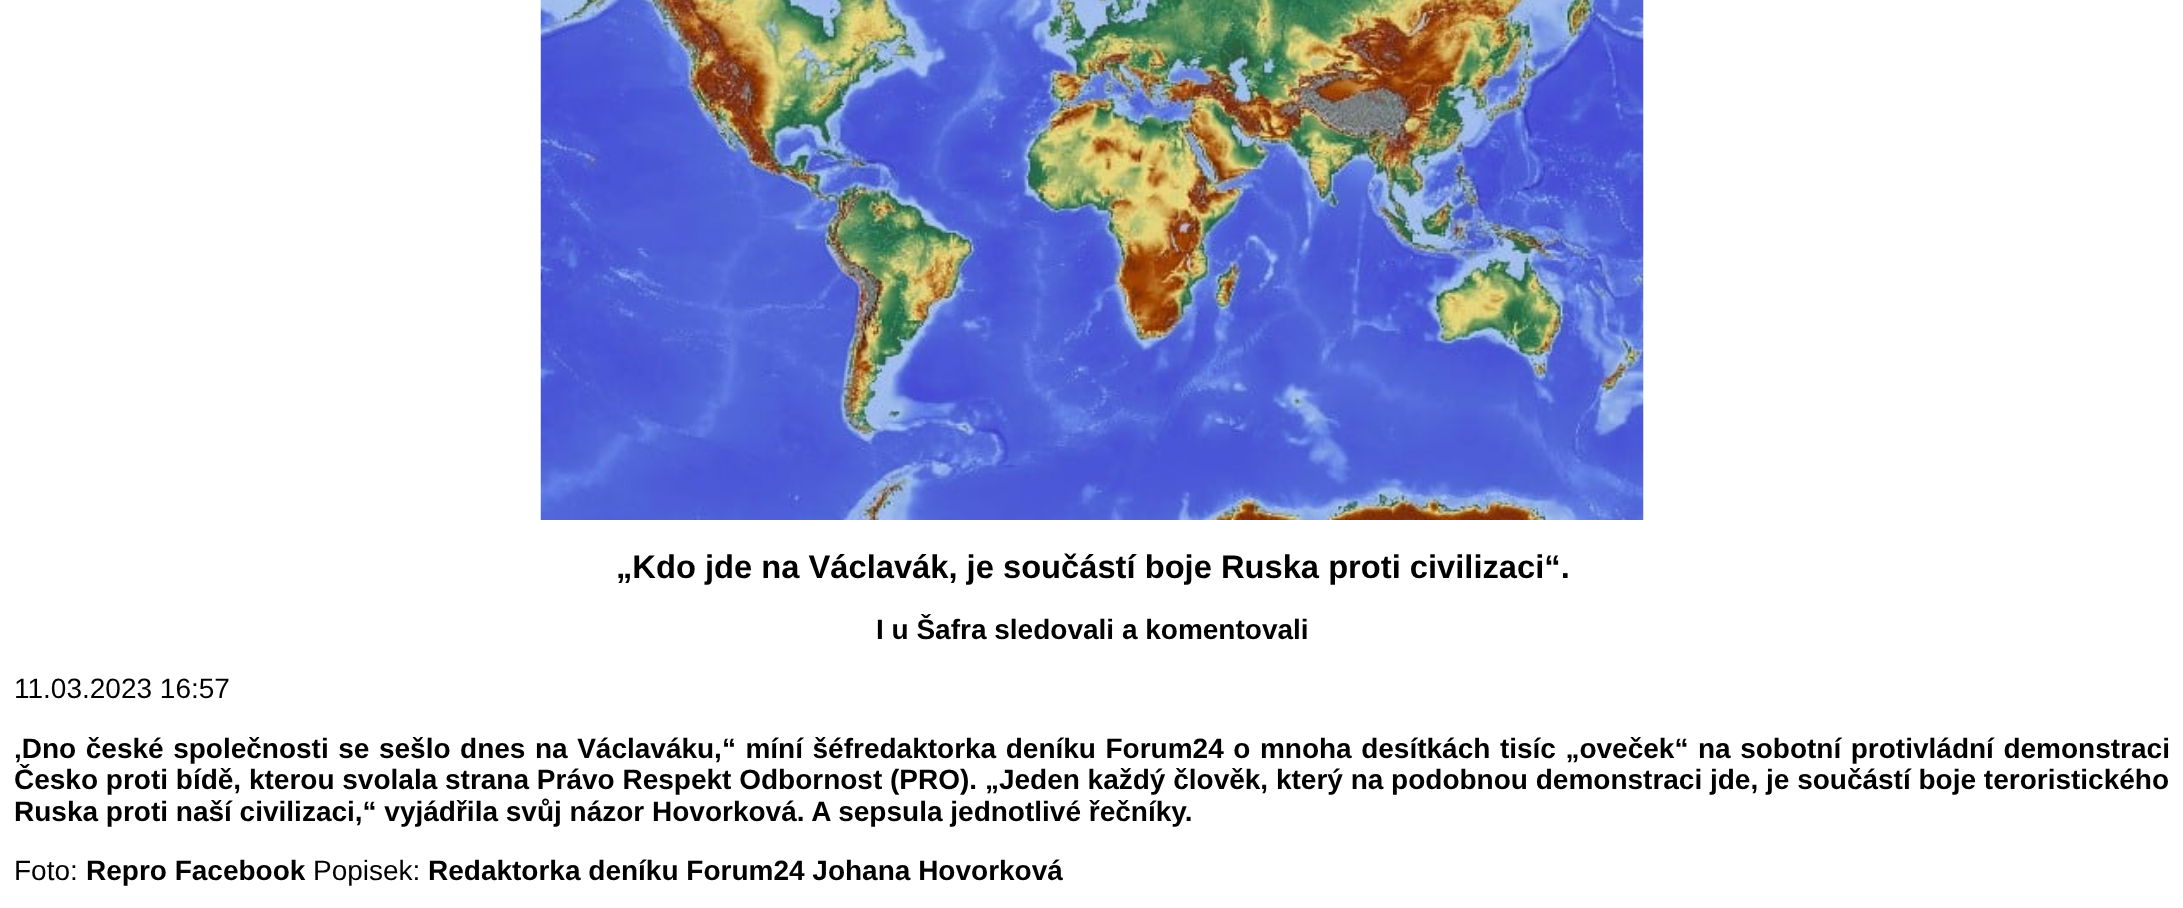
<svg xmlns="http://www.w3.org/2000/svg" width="2183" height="908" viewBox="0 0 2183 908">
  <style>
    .t1 { font: bold 32.7px Liberation Sans; fill: #000; }
    .t2 { font: bold 28px Liberation Sans; fill: #000; }
    .t3 { font: 28px Liberation Sans; fill: #000; }
  </style>
  <rect width="100%" height="100%" fill="#fff"/>
  <image x="540" y="0" width="1104" height="520" href="images/1.png"/>
  <text x="616" y="578" class="t1">„Kdo jde na Václavák, je součástí boje Ruska proti civilizaci“.</text>
  <text x="876" y="639" class="t2">I u Šafra sledovali a komentovali</text>
  <text x="14" y="698" class="t3">11.03.2023 16:57</text>
  <text x="14" y="758" word-spacing="1.75" class="t2">‚Dno české společnosti se sešlo dnes na Václaváku,“ míní šéfredaktorka deníku Forum24 o mnoha desítkách tisíc „oveček“ na sobotní protivládní demonstraci</text>
  <text x="14" y="789" class="t2">Česko proti bídě, kterou svolala strana Právo Respekt Odbornost (PRO). „Jeden každý člověk, který na podobnou demonstraci jde, je součástí boje teroristického</text>
  <text x="14" y="821" class="t2">Ruska proti naší civilizaci,“ vyjádřila svůj názor Hovorková. A sepsula jednotlivé řečníky.</text>
  <text x="14" y="880" class="t3">Foto:</text>
  <text x="86" y="880" class="t2">Repro Facebook</text>
  <text x="313" y="880" class="t3">Popisek:</text>
  <text x="428" y="880" class="t2">Redaktorka deníku Forum24 Johana Hovorková</text>
</svg>
